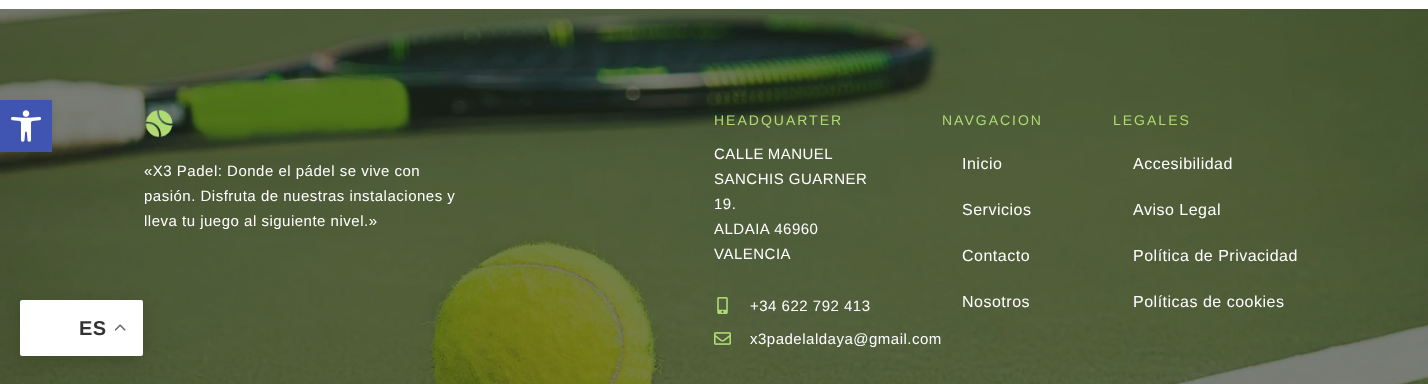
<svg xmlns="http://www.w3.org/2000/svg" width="1428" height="384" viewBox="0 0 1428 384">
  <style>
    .t1 { font: bold 20px Liberation Sans; letter-spacing: 0.5px; fill: #333; }
    .t2 { font: 15px Liberation Sans; letter-spacing: 0.5px; fill: #fff; }
    .t3 { font: 14px Liberation Sans; letter-spacing: 2px; fill: #b0db72; }
    .t4 { font: 16px Liberation Sans; letter-spacing: 0.5px; fill: #fff; }
  </style>
  <rect width="100%" height="100%" fill="#fff"/>
  <image x="0" y="9" width="1428" height="375" href="images/3.png"/>
  <rect x="0" y="100" width="52" height="52" fill="#0000001a" filter="blur(5px)"/>
  <rect x="0" y="100" width="52" height="52" fill="#4054b2"/>
  <image x="11" y="110" width="30" height="32" href="images/1.png"/>
  <rect x="20" y="305" width="123" height="56" rx="2" fill="#00000026" filter="blur(7.5px)"/>
  <rect x="20" y="300" width="123" height="56" rx="2" fill="#fff"/>
  <text x="79" y="335" class="t1">ES</text>
  <image x="115" y="324" width="11" height="7" href="images/2.png"/>
  <image x="145" y="110" width="28" height="28" href="images/4.png"/>
  <text x="144" y="176" class="t2">«X3 Padel: Donde el pádel se vive con</text>
  <text x="144" y="201" class="t2">pasión. Disfruta de nuestras instalaciones y</text>
  <text x="144" y="226" class="t2">lleva tu juego al siguiente nivel.»</text>
  <text x="714" y="125" class="t3">HEADQUARTER</text>
  <text x="714" y="159" word-spacing="-1" class="t2">CALLE MANUEL</text>
  <text x="714" y="184" class="t2">SANCHIS GUARNER</text>
  <text x="714" y="209" class="t2">19.</text>
  <text x="714" y="234" class="t2">ALDAIA 46960</text>
  <text x="714" y="259" class="t2">VALENCIA</text>
  <image x="717" y="297" width="11" height="17" href="images/5.png"/>
  <text x="750" y="311" class="t2">+34 622 792 413</text>
  <image x="714" y="332" width="17" height="13" href="images/6.png"/>
  <text x="750" y="344" class="t2">x3padelaldaya@gmail.com</text>
  <text x="942" y="125" class="t3">NAVGACION</text>
  <text x="962" y="169" class="t4">Inicio</text>
  <text x="962" y="215" class="t4">Servicios</text>
  <text x="962" y="261" class="t4">Contacto</text>
  <text x="962" y="307" class="t4">Nosotros</text>
  <text x="1113" y="125" class="t3">LEGALES</text>
  <text x="1133" y="169" class="t4">Accesibilidad</text>
  <text x="1133" y="215" class="t4">Aviso Legal</text>
  <text x="1133" y="261" class="t4">Política de Privacidad</text>
  <text x="1133" y="307" class="t4">Políticas de cookies</text>
</svg>
